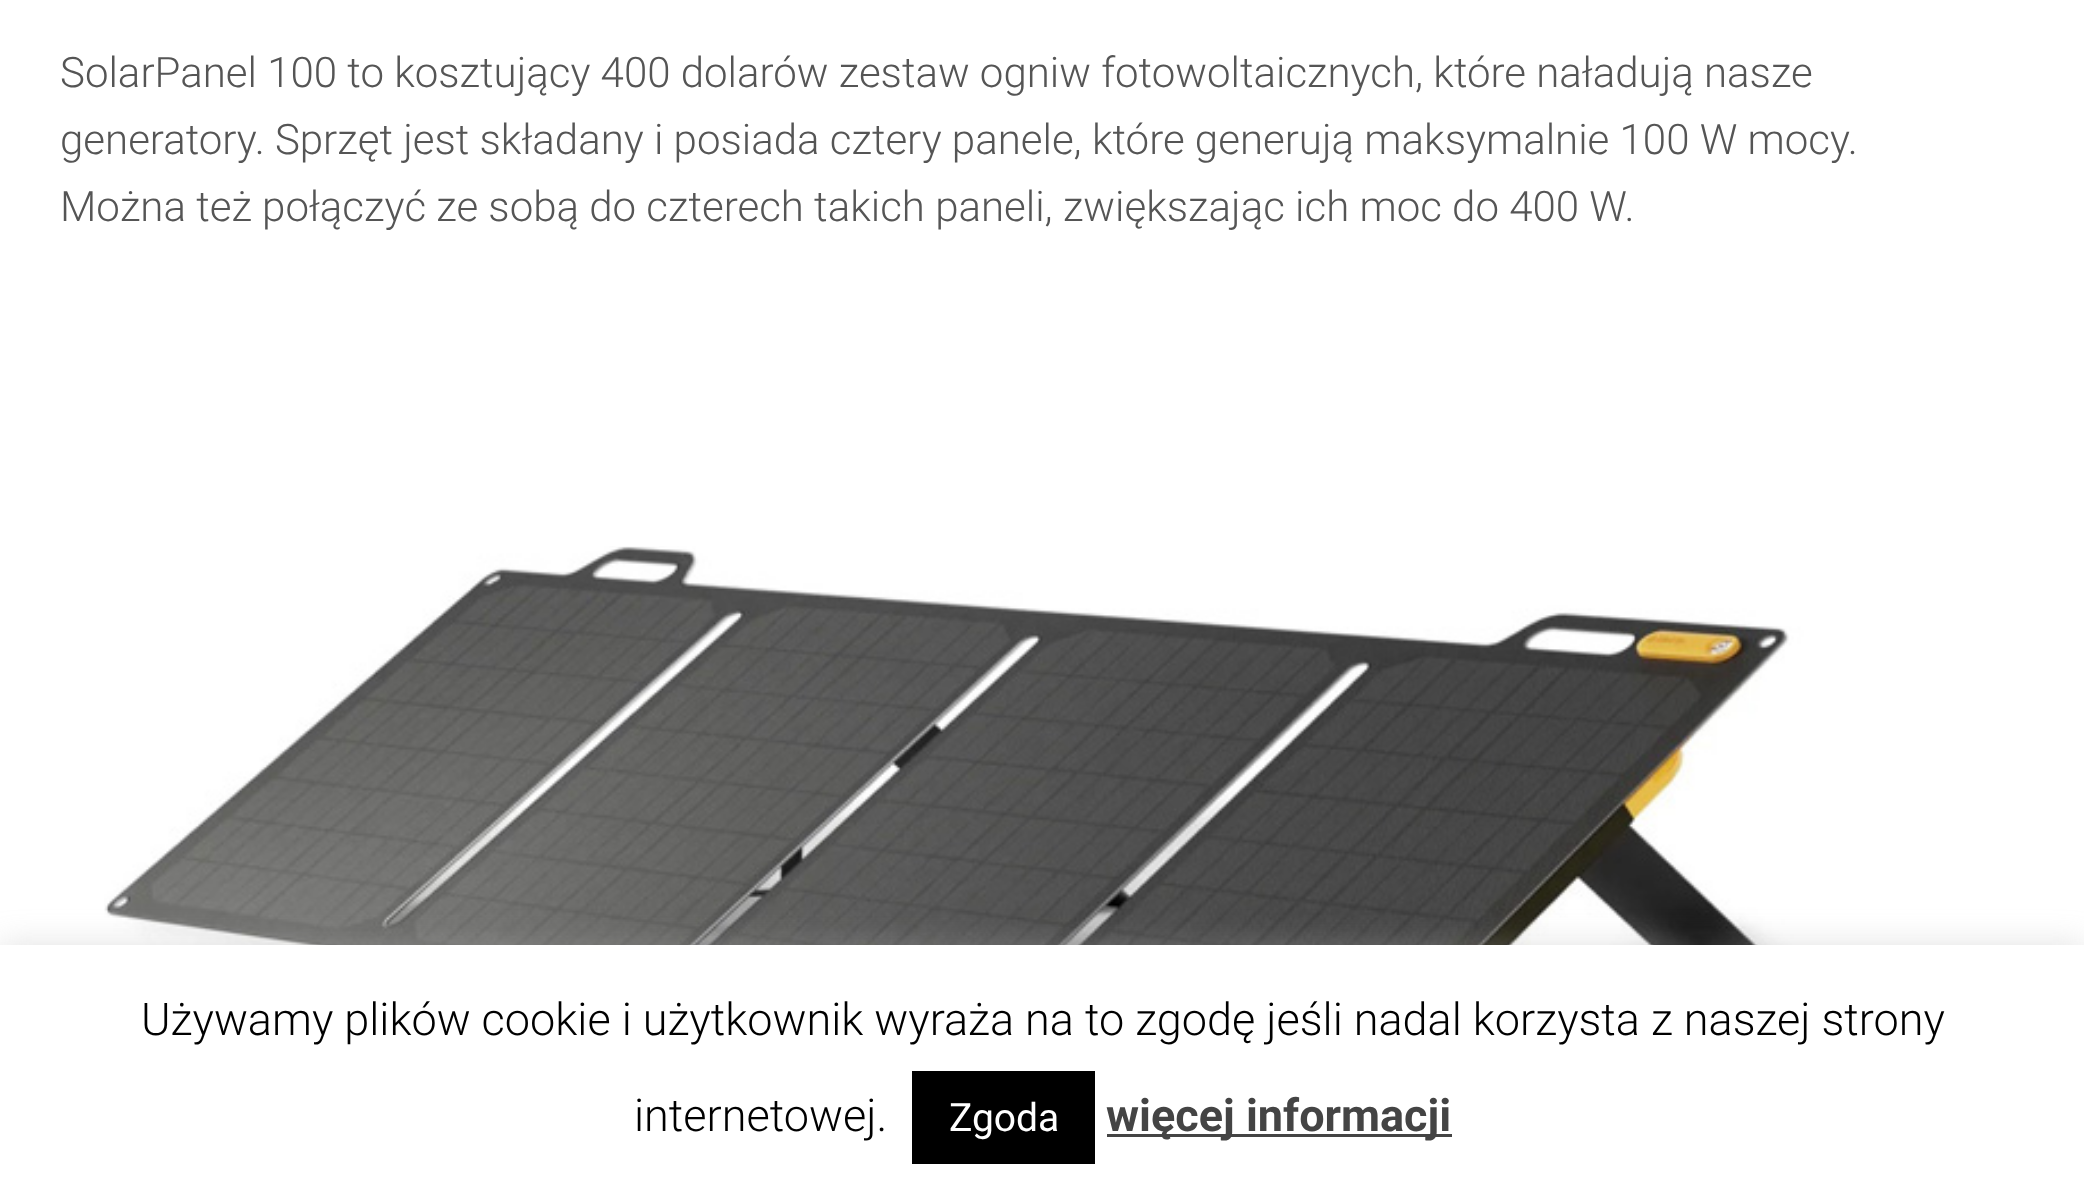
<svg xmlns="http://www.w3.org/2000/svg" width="2084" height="1198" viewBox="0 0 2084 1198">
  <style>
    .t1 { font: 300 42px Roboto; fill: #555; }
    .t2 { font: 300 45px Roboto; fill: #000; }
    .t3 { font: 39px Roboto; fill: #fff; }
    .t4 { font: bold 45px Roboto; fill: #444; }
  </style>
  <rect width="100%" height="100%" fill="#fff"/>
  <text x="60" y="87" class="t1">SolarPanel 100 to kosztujący 400 dolarów zestaw ogniw fotowoltaicznych, które naładują nasze</text>
  <text x="60" y="154" class="t1">generatory. Sprzęt jest składany i posiada cztery panele, które generują maksymalnie 100 W mocy.</text>
  <text x="60" y="221" class="t1">Można też połączyć ze sobą do czterech takich paneli, zwiększając ich moc do 400 W.</text>
  <image x="104" y="546" width="1771" height="399" href="images/1.png"/>
  <rect x="0" y="942" width="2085" height="255" fill="#acabab4d" filter="blur(15px)"/>
  <rect x="0" y="945" width="2084" height="253" fill="#fff"/>
  <text x="141" y="1035" class="t2">Używamy plików cookie i użytkownik wyraża na to zgodę jeśli nadal korzysta z naszej strony</text>
  <text x="634" y="1131" class="t2">internetowej.</text>
  <rect x="912" y="1071" width="183" height="93" fill="#000"/>
  <text x="949" y="1131" class="t3">Zgoda</text>
  <rect x="1107" y="1134" width="345" height="3" fill="#444"/>
  <text x="1106" y="1131" class="t4">więcej informacji</text>
</svg>
